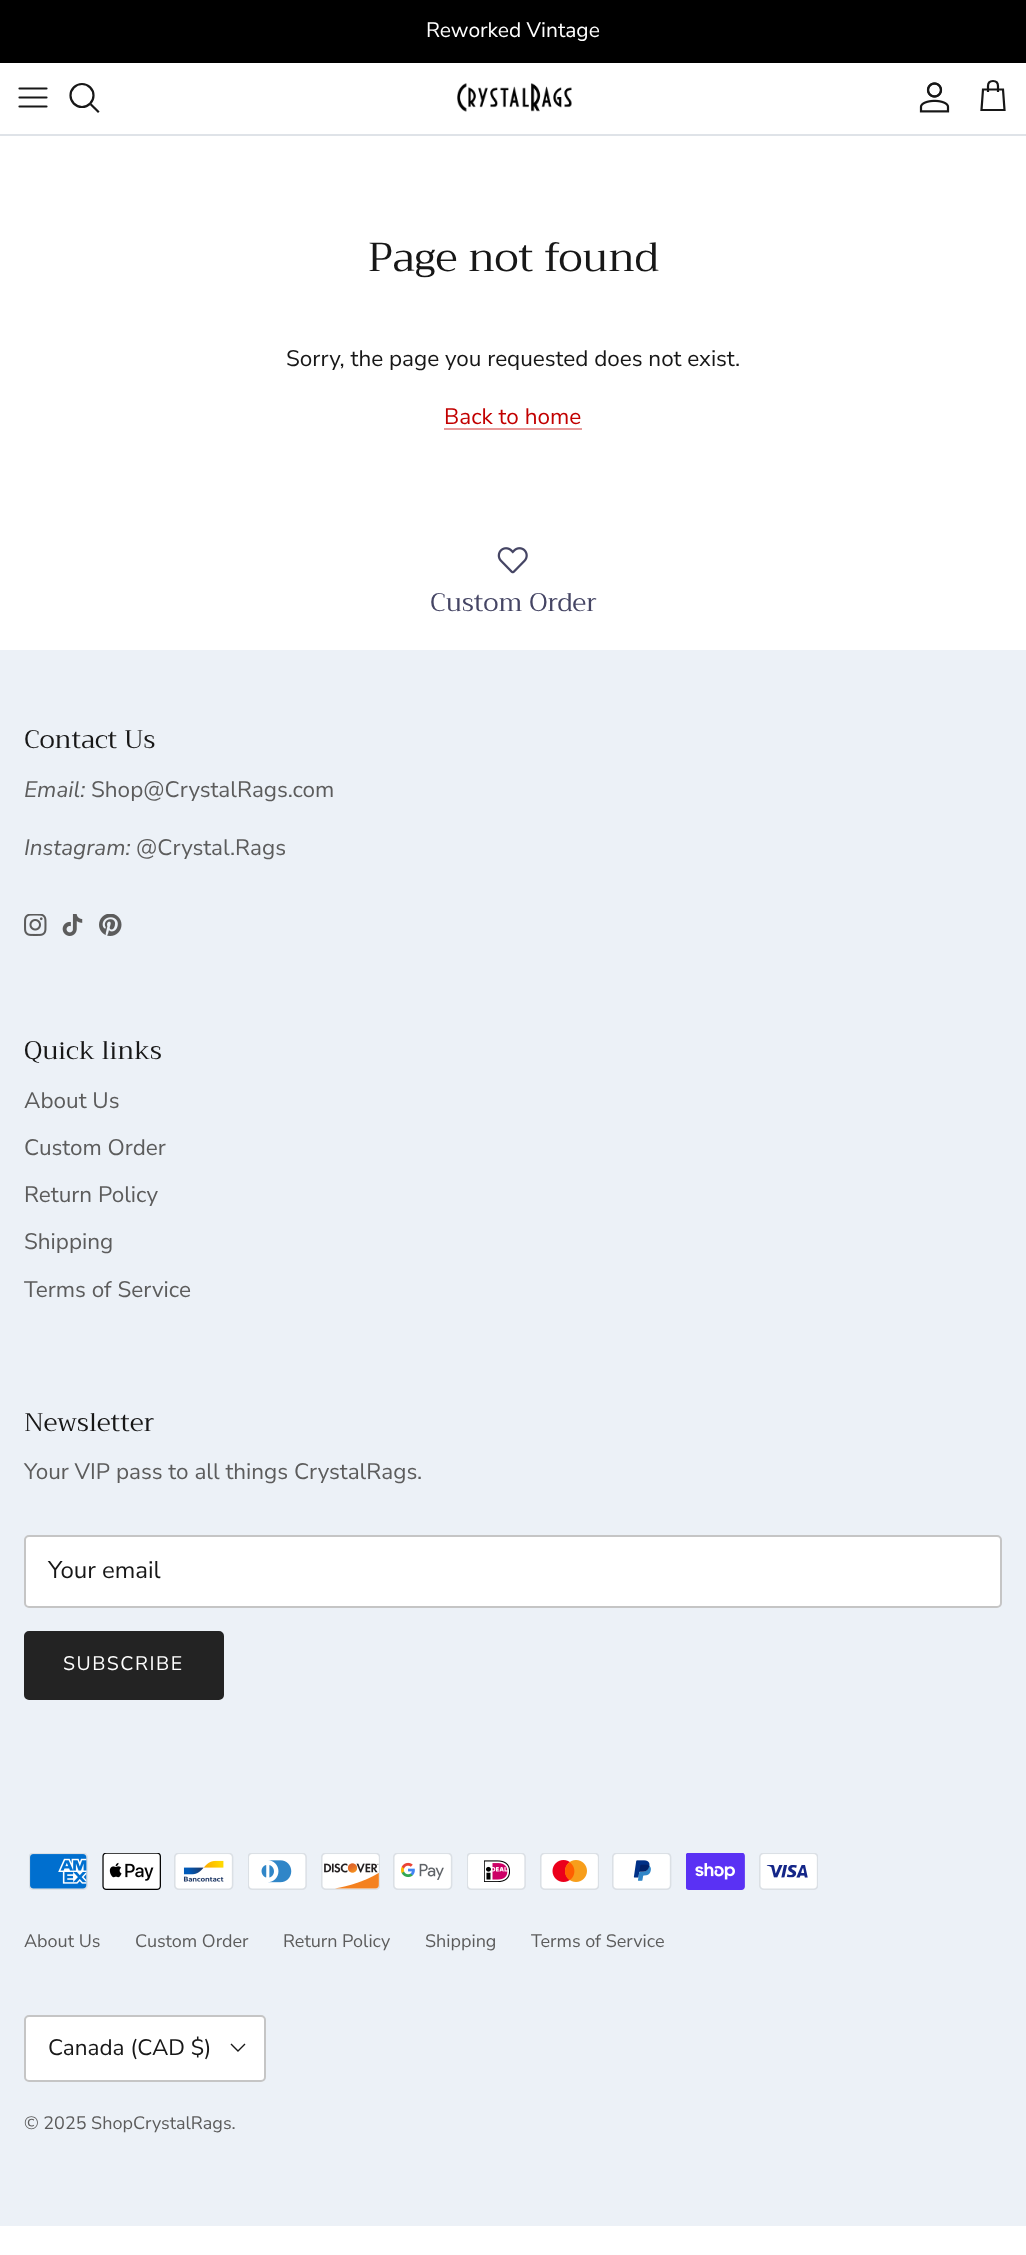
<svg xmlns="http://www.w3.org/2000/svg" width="1026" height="2255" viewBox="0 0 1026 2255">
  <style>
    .t1 { font: 21px Nunito Sans; fill: #fff; }
    .t2 { font: 40.5px Trirong; fill: #171717; }
    .t3 { font: 22.5px Nunito Sans; fill: #171717; }
    .t4 { font: 22.5px Nunito Sans; fill: #c20000; }
    .t5 { font: 25.5px Trirong; fill: #454564; }
    .t6 { font: 25.5px Trirong; fill: #171717; }
    .t7 { font: italic 22.5px Nunito Sans; fill: #5c5c5c; }
    .t8 { font: 22.5px Nunito Sans; fill: #5c5c5c; }
    .t9 { font: 24px Nunito Sans; fill: #171717; }
    .t10 { font: 19.5px Nunito Sans; letter-spacing: 1.5px; fill: #fff; }
    .t11 { font: 18px Nunito Sans; fill: #5c5c5c; }
  </style>
  <rect width="100%" height="100%" fill="#fff"/>
  <rect x="0" y="0" width="1026" height="63" fill="#000"/>
  <text x="426" y="37" class="t1">Reworked Vintage</text>
  <rect x="0" y="134" width="1026" height="2" fill="#dfe3e8"/>
  <path d="M19.5 97.5H46.5M19.5 88.5H46.5M19.5 106.5H46.5" fill="none" stroke="#171717" stroke-width="2.2" stroke-linecap="round" stroke-linejoin="round"/>
  <circle cx="82" cy="95.5" r="11.5" fill="none" stroke="#171717" stroke-width="2.2"/>
  <path d="M91.5 105L98 111.5" fill="none" stroke="#171717" stroke-width="2.2" stroke-linecap="square"/>
  <image x="457" y="83" width="115" height="29" href="images/1.png"/>
  <image x="919" y="82" width="31" height="31" href="images/2.png"/>
  <path d="M998 92V86C998 83 996 81 993 81C990 81 988 83 988 86V92M983 89.5H1003L1004.5 110H981.5Z" fill="none" stroke="#171717" stroke-width="2.2"/>
  <text x="368" y="271" class="t2">Page not found</text>
  <text x="286" y="366" class="t3">Sorry, the page you requested does not exist.</text>
  <text x="444" y="424" class="t4">Back to home</text>
  <rect x="444" y="428" width="138" height="2" fill="#e79999"/>
  <image x="497" y="547" width="31" height="27" href="images/3.png"/>
  <text x="430" y="611" class="t5">Custom Order</text>
  <rect x="0" y="650" width="1026" height="1576" fill="#ecf1f7"/>
  <text x="24" y="748" class="t6">Contact Us</text>
  <text x="24" y="797" class="t7">Email:</text>
  <text x="91" y="797" class="t8">Shop@CrystalRags.com</text>
  <text x="24" y="855" class="t7">Instagram:</text>
  <text x="136" y="855" class="t8">@Crystal.Rags</text>
  <image x="24" y="914" width="23" height="22" href="images/4.png"/>
  <image x="62" y="914" width="21" height="22" href="images/5.png"/>
  <image x="99" y="914" width="23" height="22" href="images/6.png"/>
  <text x="24" y="1059" class="t6">Quick links</text>
  <text x="24" y="1108" class="t8">About Us</text>
  <text x="24" y="1155" class="t8">Custom Order</text>
  <text x="24" y="1202" class="t8">Return Policy</text>
  <text x="24" y="1249" class="t8">Shipping</text>
  <text x="24" y="1297" class="t8">Terms of Service</text>
  <text x="24" y="1431" class="t6">Newsletter</text>
  <text x="24" y="1479" class="t8">Your VIP pass to all things CrystalRags.</text>
  <rect x="25" y="1536" width="976" height="71" rx="4" fill="#fff" stroke="#c5c5c5" stroke-width="2"/>
  <text x="48" y="1578" class="t9">Your email</text>
  <rect x="25" y="1632" width="198" height="67" rx="4" fill="#232323" stroke="#232323" stroke-width="2"/>
  <text x="63" y="1670" class="t10">SUBSCRIBE</text>
  <image x="29" y="1853" width="59" height="37" href="images/7.png"/>
  <image x="102" y="1853" width="59" height="37" href="images/8.png"/>
  <image x="174" y="1853" width="60" height="37" href="images/9.png"/>
  <image x="248" y="1853" width="59" height="37" href="images/10.png"/>
  <image x="321" y="1853" width="59" height="37" href="images/11.png"/>
  <image x="393" y="1853" width="60" height="37" href="images/12.png"/>
  <image x="467" y="1853" width="59" height="37" href="images/13.png"/>
  <image x="540" y="1853" width="59" height="37" href="images/14.png"/>
  <image x="612" y="1853" width="60" height="37" href="images/15.png"/>
  <image x="686" y="1853" width="59" height="37" href="images/16.png"/>
  <image x="759" y="1853" width="59" height="37" href="images/17.png"/>
  <text x="24" y="1947" class="t11">About Us</text>
  <text x="135" y="1947" class="t11">Custom Order</text>
  <text x="283" y="1947" class="t11">Return Policy</text>
  <text x="425" y="1947" class="t11">Shipping</text>
  <text x="531" y="1947" class="t11">Terms of Service</text>
  <rect x="25" y="2016" width="240" height="65" rx="4" fill="#fff" stroke="#c5c5c5" stroke-width="2"/>
  <text x="48" y="2055" class="t3">Canada (CAD $)</text>
  <path d="M245 2044L238 2051L231 2044" fill="none" stroke="#171717" stroke-width="1.4"/>
  <text x="24" y="2129" class="t11">© 2025 ShopCrystalRags.</text>
</svg>
